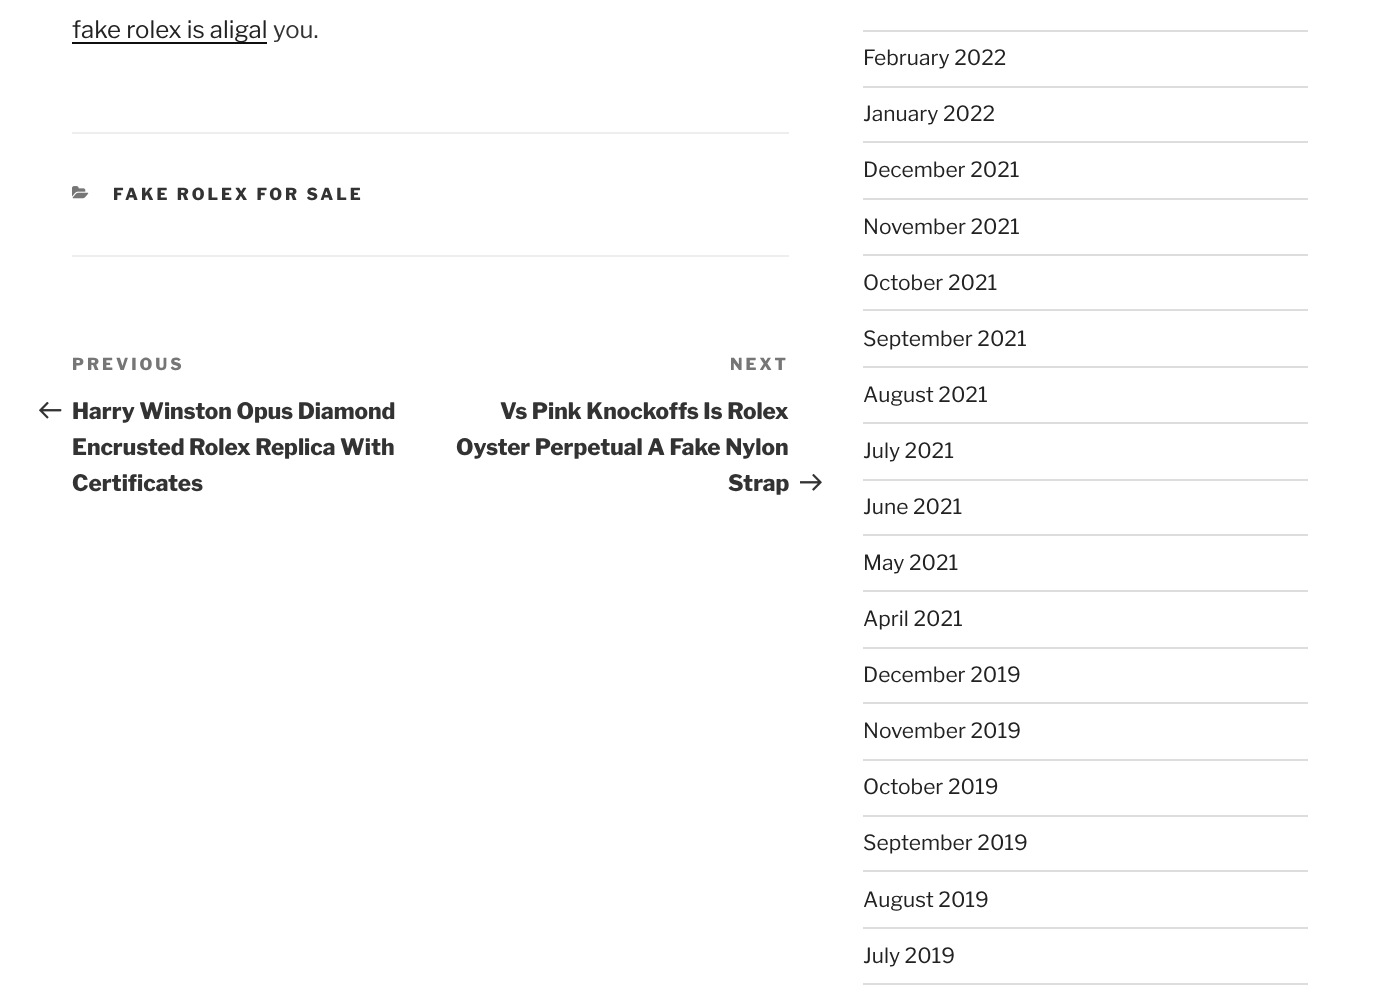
<svg xmlns="http://www.w3.org/2000/svg" width="1380" height="992" viewBox="0 0 1380 992">
  <style>
    .t1 { font: 100 24px 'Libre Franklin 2'; fill: #222; }
    .t2 { font: 100 24px 'Libre Franklin 2'; fill: #333; }
    .t3 { font: 100 16.5px Libre Franklin; letter-spacing: 3px; fill: #333; }
    .t4 { font: 100 16.5px Libre Franklin; letter-spacing: 3px; fill: #767676; }
    .t5 { font: 100 22.5px Libre Franklin; fill: #333; }
    .t6 { font: 100 21px 'Libre Franklin 2'; fill: #222; }
  </style>
  <rect width="100%" height="100%" fill="#fff"/>
  <rect x="72" y="42" width="195" height="2" fill="#0f0f0f"/>
  <text x="72" y="38" class="t1">fake rolex is aligal</text>
  <text x="273" y="38" class="t2">you.</text>
  <rect x="72" y="132" width="717" height="2" fill="#eee"/>
  <rect x="72" y="255" width="717" height="2" fill="#eee"/>
  <image x="72" y="186" width="17" height="13" href="images/1.png"/>
  <text x="113" y="200" class="t3">FAKE ROLEX FOR SALE</text>
  <text x="72" y="370" class="t4">PREVIOUS</text>
  <image x="39" y="401" width="23" height="18" href="images/2.png"/>
  <text x="72" y="419" class="t5">Harry Winston Opus Diamond</text>
  <text x="72" y="455" class="t5">Encrusted Rolex Replica With</text>
  <text x="72" y="491" class="t5">Certificates</text>
  <text x="730" y="370" class="t4">NEXT</text>
  <text x="500" y="419" class="t5">Vs Pink Knockoffs Is Rolex</text>
  <text x="456" y="455" class="t5">Oyster Perpetual A Fake Nylon</text>
  <text x="728" y="491" class="t5">Strap</text>
  <image x="800" y="473" width="22" height="18" href="images/3.png"/>
  <rect x="863" y="30" width="445" height="2" fill="#ddd"/>
  <rect x="863" y="86" width="445" height="2" fill="#ddd"/>
  <text x="863" y="65" class="t6">February 2022</text>
  <rect x="863" y="141" width="445" height="2" fill="#ddd"/>
  <text x="863" y="121" class="t6">January 2022</text>
  <rect x="863" y="198" width="445" height="2" fill="#ddd"/>
  <text x="863" y="177" class="t6">December 2021</text>
  <rect x="863" y="254" width="445" height="2" fill="#ddd"/>
  <text x="863" y="234" class="t6">November 2021</text>
  <rect x="863" y="309" width="445" height="2" fill="#ddd"/>
  <text x="863" y="290" class="t6">October 2021</text>
  <rect x="863" y="366" width="445" height="2" fill="#ddd"/>
  <text x="863" y="346" class="t6">September 2021</text>
  <rect x="863" y="422" width="445" height="2" fill="#ddd"/>
  <text x="863" y="402" class="t6">August 2021</text>
  <rect x="863" y="479" width="445" height="2" fill="#ddd"/>
  <text x="863" y="458" class="t6">July 2021</text>
  <rect x="863" y="534" width="445" height="2" fill="#ddd"/>
  <text x="863" y="514" class="t6">June 2021</text>
  <rect x="863" y="590" width="445" height="2" fill="#ddd"/>
  <text x="863" y="570" class="t6">May 2021</text>
  <rect x="863" y="647" width="445" height="2" fill="#ddd"/>
  <text x="863" y="626" class="t6">April 2021</text>
  <rect x="863" y="702" width="445" height="2" fill="#ddd"/>
  <text x="863" y="682" class="t6">December 2019</text>
  <rect x="863" y="759" width="445" height="2" fill="#ddd"/>
  <text x="863" y="738" class="t6">November 2019</text>
  <rect x="863" y="815" width="445" height="2" fill="#ddd"/>
  <text x="863" y="794" class="t6">October 2019</text>
  <rect x="863" y="870" width="445" height="2" fill="#ddd"/>
  <text x="863" y="850" class="t6">September 2019</text>
  <rect x="863" y="927" width="445" height="2" fill="#ddd"/>
  <text x="863" y="907" class="t6">August 2019</text>
  <rect x="863" y="983" width="445" height="2" fill="#ddd"/>
  <text x="863" y="963" class="t6">July 2019</text>
</svg>
